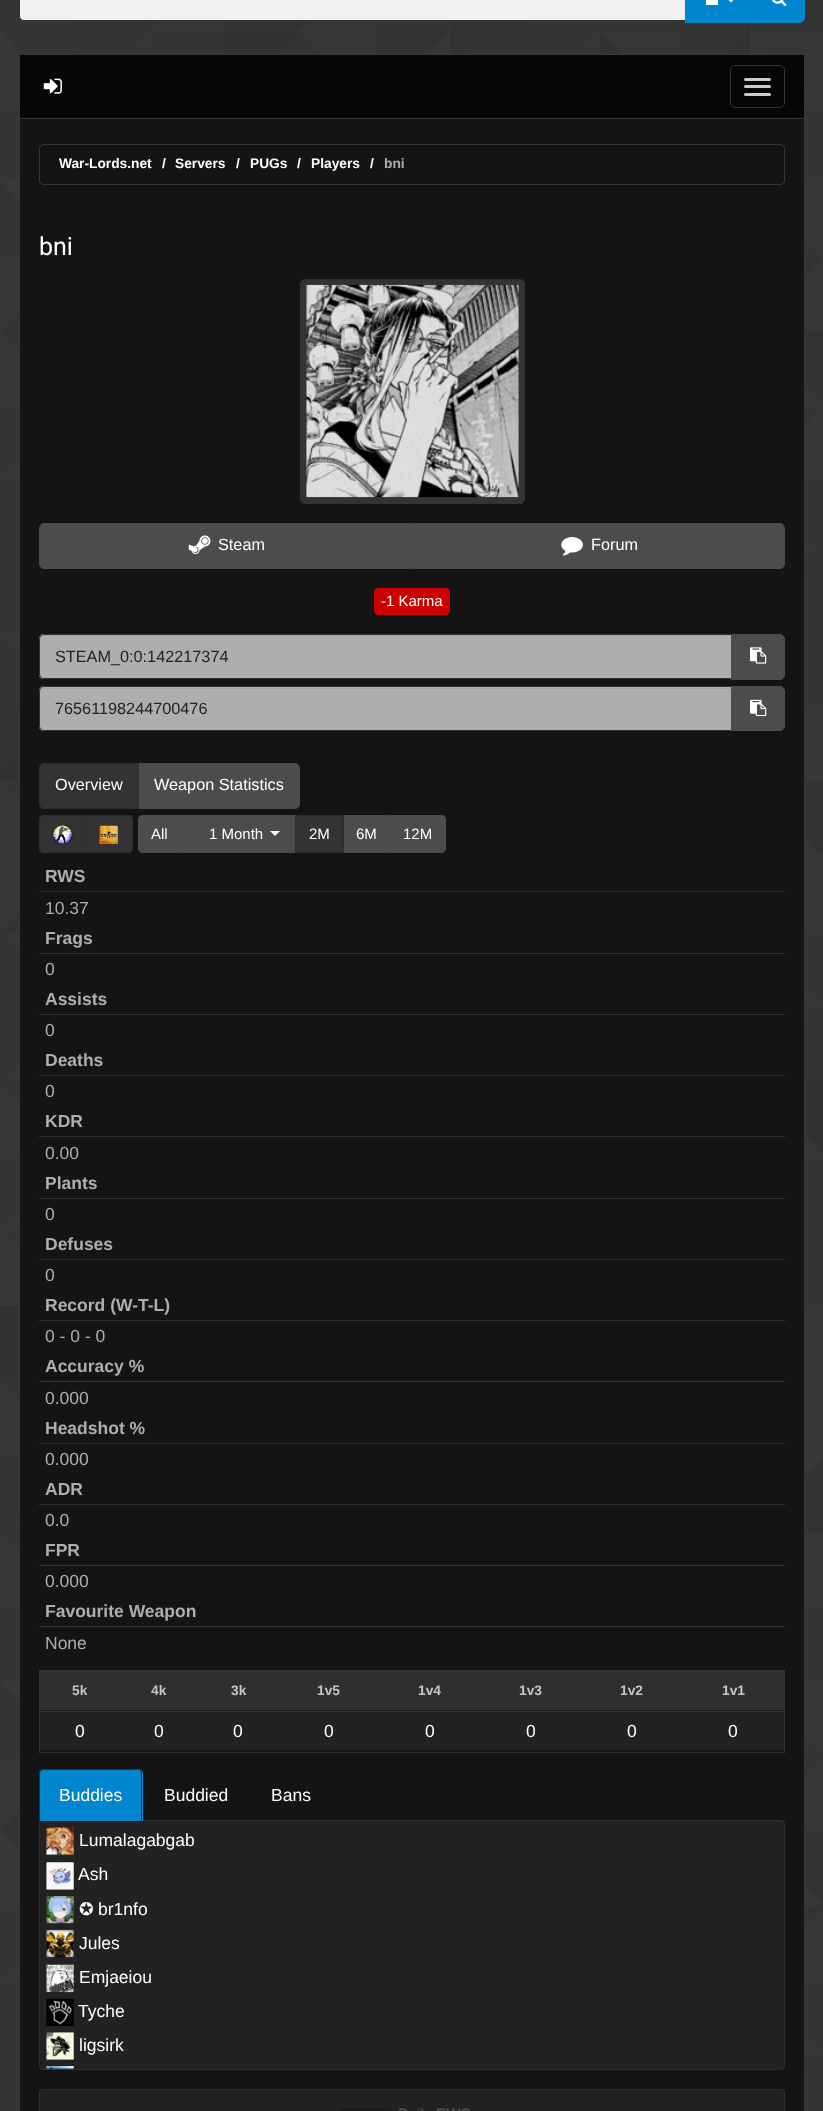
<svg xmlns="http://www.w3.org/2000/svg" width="823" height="2111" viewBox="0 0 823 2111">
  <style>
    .t1 { font: bold 13.75px Liberation Sans; fill: #fff; }
    .t2 { font: bold 13.75px Liberation Sans; fill: #adafae; }
    .t3 { font: 25px Roboto; fill: #fff; }
    .t4 { font: 16.25px Liberation Sans; fill: #fff; }
    .t5 { font: 15px Liberation Sans; fill: #fff; }
    .t6 { font: 16.25px Liberation Sans; fill: #222; }
    .t7 { font: bold 17.5px Liberation Sans; fill: #adafae; }
    .t8 { font: 17.5px Liberation Sans; fill: #adafae; }
    .t9 { font: bold 13.75px Liberation Sans; fill: #c5c5c5; }
    .t10 { font: 17.5px Liberation Sans; fill: #fff; }
    .t11 { font: 17.5px DejaVu Sans; fill: #fff; }
  </style>
  <rect width="100%" height="100%" fill="#fff"/>
  <image x="0" y="0" width="823" height="2111" href="images/1.png"/>
  <path d="M24-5.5H685.5V20.5H24C21.5 20.5 19.5 18.5 19.5 16V-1C19.5-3.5 21.5-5.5 24-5.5Z" fill="#f1f1f1" stroke="#333"/>
  <rect x="685" y="0" width="66" height="23" fill="#0085cf"/>
  <rect x="706" y="0" width="12" height="5" fill="#fff"/>
  <path d="M726-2.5H736L731 2.5Z" fill="#fff"/>
  <path d="M751.5-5.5H800C802.5-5.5 804.5-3.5 804.5-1V18C804.5 20.5 802.5 22.5 800 22.5H751.5Z" fill="#0085cf" stroke="#0085cf"/>
  <image x="771" y="0" width="16" height="7" href="images/2.png"/>
  <rect x="19.5" y="54.5" width="785" height="64" fill="#060606" stroke="#373838"/>
  <image x="43" y="78" width="19" height="16" href="images/3.png"/>
  <rect x="730.5" y="65.5" width="54" height="42" rx="4.5" fill="none" stroke="#333"/>
  <rect x="744" y="78" width="27" height="3" rx="1.5" fill="#ccc"/>
  <rect x="744" y="85" width="27" height="3" rx="1.5" fill="#ccc"/>
  <rect x="744" y="93" width="27" height="3" rx="1.5" fill="#ccc"/>
  <rect x="20" y="119" width="784" height="1992" fill="#141414"/>
  <path d="M19 119H805V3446C805 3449 803 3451 800 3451H24C21 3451 19 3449 19 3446ZM20 119H804V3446C804 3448 802 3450 800 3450H24C22 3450 20 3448 20 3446Z" fill="#373838" fill-rule="evenodd"/>
  <rect x="39.5" y="144.5" width="745" height="40" rx="4.5" fill="none" stroke="#373838"/>
  <text x="59" y="168" class="t1">War-Lords.net</text>
  <text x="162" y="168" class="t1">/</text>
  <text x="175" y="168" class="t1">Servers</text>
  <text x="236" y="168" class="t1">/</text>
  <text x="250" y="168" class="t1">PUGs</text>
  <text x="297" y="168" class="t1">/</text>
  <text x="311" y="168" class="t1">Players</text>
  <text x="370" y="168" class="t1">/</text>
  <text x="384" y="168" class="t2">bni</text>
  <text x="39" y="255" class="t3">bni</text>
  <rect x="300.5" y="279.5" width="224" height="224" rx="4.5" fill="#333" stroke="#333"/>
  <image x="306" y="284" width="213" height="214" href="images/4.png"/>
  <path d="M44 523.5H412.5V568.5H44C41.5 568.5 39.5 566.5 39.5 564V528C39.5 525.5 41.5 523.5 44 523.5Z" fill="#4d4c4c" stroke="#4d4c4c"/>
  <image x="188" y="535" width="23" height="19" href="images/5.png"/>
  <text x="218" y="550" class="t4">Steam</text>
  <path d="M413.5 523.5H780C782.5 523.5 784.5 525.5 784.5 528V564C784.5 566.5 782.5 568.5 780 568.5H413.5Z" fill="#4d4c4c" stroke="#4d4c4c"/>
  <image x="561" y="537" width="22" height="19" href="images/6.png"/>
  <text x="591" y="550" class="t4">Forum</text>
  <rect x="374.5" y="588.5" width="75" height="26" rx="3.5" fill="#c00" stroke="#c00"/>
  <text x="381" y="606" class="t5">-1 Karma</text>
  <path d="M44 634H733V679H44C41 679 39 677 39 674V639C39 636 41 634 44 634Z" fill="#adafae"/>
  <path d="M44 636H731V635H44C42 635 40 637 40 639V640C40 638 42 636 44 636Z" fill="#a0a2a1"/>
  <path d="M44 634.5H732.5V678.5H44C41.5 678.5 39.5 676.5 39.5 674V639C39.5 636.5 41.5 634.5 44 634.5Z" fill="none" stroke="#333"/>
  <text x="55" y="662" class="t6">STEAM_0:0:142217374</text>
  <path d="M731.5 634.5H780C782.5 634.5 784.5 636.5 784.5 639V675C784.5 677.5 782.5 679.5 780 679.5H731.5Z" fill="#4d4c4c" stroke="#4d4c4c"/>
  <image x="750" y="647" width="17" height="17" href="images/7.png"/>
  <path d="M44 686H733V731H44C41 731 39 729 39 726V691C39 688 41 686 44 686Z" fill="#adafae"/>
  <path d="M44 689H731V688H44C42 688 40 690 40 692C40 690 42 689 44 689Z" fill="#a0a2a1"/>
  <path d="M44 686.5H732.5V730.5H44C41.5 730.5 39.5 728.5 39.5 726V691C39.5 688.5 41.5 686.5 44 686.5Z" fill="none" stroke="#333"/>
  <text x="55" y="714" class="t6">76561198244700476</text>
  <path d="M731.5 686.5H780C782.5 686.5 784.5 688.5 784.5 691V726C784.5 728.5 782.5 730.5 780 730.5H731.5Z" fill="#4d4c4c" stroke="#4d4c4c"/>
  <image x="750" y="699" width="17" height="18" href="images/8.png"/>
  <path d="M138.5 763.5H295C297.5 763.5 299.5 765.5 299.5 768V804C299.5 806.5 297.5 808.5 295 808.5H138.5Z" fill="#4d4c4c" stroke="#4d4c4c"/>
  <path d="M44 763.5H138.5V808.5H44C41.5 808.5 39.5 806.5 39.5 804V768C39.5 765.5 41.5 763.5 44 763.5Z" fill="#333" stroke="#2e2e2e"/>
  <text x="55" y="790" class="t4">Overview</text>
  <text x="154" y="790" class="t4">Weapon Statistics</text>
  <path d="M43 815.5H85.5V852.5H43C41 852.5 39.5 851 39.5 849V819C39.5 817 41 815.5 43 815.5Z" fill="#333" stroke="#2e2e2e"/>
  <image x="52" y="824" width="21" height="21" href="images/9.png"/>
  <path d="M85.5 815.5H129C131 815.5 132.5 817 132.5 819V849C132.5 851 131 852.5 129 852.5H85.5Z" fill="#333" stroke="#2e2e2e"/>
  <image x="99" y="825" width="19" height="19" href="images/10.png"/>
  <path d="M142 815.5H180.5V852.5H142C140 852.5 138.5 851 138.5 849V819C138.5 817 140 815.5 142 815.5Z" fill="#4d4c4c" stroke="#4d4c4c"/>
  <text x="151" y="839" class="t5">All</text>
  <rect x="181" y="815" width="114" height="38" fill="#4d4c4c"/>
  <text x="209" y="839" class="t5">1 Month</text>
  <path d="M270 831H280L275 836Z" fill="#fff"/>
  <rect x="295.5" y="815.5" width="48" height="37" fill="#333" stroke="#2e2e2e"/>
  <text x="309" y="839" class="t5">2M</text>
  <rect x="344" y="815" width="45" height="38" fill="#4d4c4c"/>
  <text x="356" y="839" class="t5">6M</text>
  <path d="M389.5 815.5H442C444 815.5 445.5 817 445.5 819V849C445.5 851 444 852.5 442 852.5H389.5Z" fill="#4d4c4c" stroke="#4d4c4c"/>
  <text x="403" y="839" class="t5">12M</text>
  <text x="45" y="882" class="t7">RWS</text>
  <rect x="39" y="891" width="746" height="1" fill="#333"/>
  <text x="45" y="914" class="t8">10.37</text>
  <text x="45" y="944" class="t7">Frags</text>
  <rect x="39" y="953" width="746" height="1" fill="#333"/>
  <text x="45" y="975" class="t8">0</text>
  <text x="45" y="1005" class="t7">Assists</text>
  <rect x="39" y="1014" width="746" height="1" fill="#333"/>
  <text x="45" y="1036" class="t8">0</text>
  <text x="45" y="1066" class="t7">Deaths</text>
  <rect x="39" y="1075" width="746" height="1" fill="#333"/>
  <text x="45" y="1097" class="t8">0</text>
  <text x="45" y="1127" class="t7">KDR</text>
  <rect x="39" y="1136" width="746" height="1" fill="#333"/>
  <text x="45" y="1159" class="t8">0.00</text>
  <text x="45" y="1189" class="t7">Plants</text>
  <rect x="39" y="1198" width="746" height="1" fill="#333"/>
  <text x="45" y="1220" class="t8">0</text>
  <text x="45" y="1250" class="t7">Defuses</text>
  <rect x="39" y="1259" width="746" height="1" fill="#333"/>
  <text x="45" y="1281" class="t8">0</text>
  <text x="45" y="1311" class="t7">Record (W-T-L)</text>
  <rect x="39" y="1320" width="746" height="1" fill="#333"/>
  <text x="45" y="1342" class="t8">0 - 0 - 0</text>
  <text x="45" y="1372" class="t7">Accuracy %</text>
  <rect x="39" y="1381" width="746" height="1" fill="#333"/>
  <text x="45" y="1404" class="t8">0.000</text>
  <text x="45" y="1434" class="t7">Headshot %</text>
  <rect x="39" y="1443" width="746" height="1" fill="#333"/>
  <text x="45" y="1465" class="t8">0.000</text>
  <text x="45" y="1495" class="t7">ADR</text>
  <rect x="39" y="1504" width="746" height="1" fill="#333"/>
  <text x="45" y="1526" class="t8">0.0</text>
  <text x="45" y="1556" class="t7">FPR</text>
  <rect x="39" y="1565" width="746" height="1" fill="#333"/>
  <text x="45" y="1587" class="t8">0.000</text>
  <text x="45" y="1617" class="t7">Favourite Weapon</text>
  <rect x="39" y="1626" width="746" height="1" fill="#333"/>
  <text x="45" y="1649" class="t8">None</text>
  <rect x="39.5" y="1670.5" width="745" height="82" fill="none" stroke="#333"/>
  <rect x="40" y="1672" width="744" height="38" fill="#2f2f2f"/>
  <rect x="40" y="1671" width="744" height="1" fill="#333"/>
  <rect x="40" y="1710" width="744" height="1" fill="#181818"/>
  <text x="72" y="1695" class="t9">5k</text>
  <text x="151" y="1695" class="t9">4k</text>
  <text x="231" y="1695" class="t9">3k</text>
  <text x="317" y="1695" class="t9">1v5</text>
  <text x="418" y="1695" class="t9">1v4</text>
  <text x="519" y="1695" class="t9">1v3</text>
  <text x="620" y="1695" class="t9">1v2</text>
  <text x="722" y="1695" class="t9">1v1</text>
  <rect x="40" y="1712" width="744" height="38" fill="#222"/>
  <rect x="40" y="1711" width="744" height="1" fill="#333"/>
  <rect x="40" y="1750" width="744" height="1" fill="#181818"/>
  <text x="75" y="1737" class="t10">0</text>
  <text x="154" y="1737" class="t10">0</text>
  <text x="233" y="1737" class="t10">0</text>
  <text x="324" y="1737" class="t10">0</text>
  <text x="425" y="1737" class="t10">0</text>
  <text x="526" y="1737" class="t10">0</text>
  <text x="627" y="1737" class="t10">0</text>
  <text x="728" y="1737" class="t10">0</text>
  <rect x="39.5" y="1820.5" width="745" height="249" rx="3.5" fill="#222" stroke="#2f2f2f"/>
  <path d="M44 1769H138C141 1769 143 1771 143 1774V1821H39V1774C39 1771 41 1769 44 1769Z" fill="#0085cf"/>
  <path d="M44 1769C42 1769 41 1770 40 1770L41 1771L44 1770H139L140 1771L141 1770C140 1770 139 1769 138 1769Z" fill="#333"/>
  <path d="M142 1821V1774C142 1773 142 1771 141 1770L140 1771L141 1774V1820Z" fill="#333"/>
  <path d="M40 1770C40 1771 39 1772 39 1774V1821L40 1820V1774C40 1773 40 1772 41 1771Z" fill="#333"/>
  <text x="59" y="1801" class="t10">Buddies</text>
  <text x="164" y="1801" class="t10">Buddied</text>
  <text x="271" y="1801" class="t10">Bans</text>
  <image x="46" y="1827" width="28" height="28" href="images/11.png"/>
  <text x="79" y="1846" class="t10">Lumalagabgab</text>
  <image x="46" y="1862" width="28" height="28" href="images/12.png"/>
  <text x="78" y="1880" class="t10">Ash</text>
  <image x="46" y="1896" width="28" height="28" href="images/13.png"/>
  <text x="79" y="1915" class="t11">✪</text>
  <text x="98" y="1915" class="t10">br1nfo</text>
  <image x="46" y="1929" width="28" height="29" href="images/14.png"/>
  <text x="79" y="1949" class="t10">Jules</text>
  <image x="46" y="1964" width="28" height="29" href="images/15.png"/>
  <text x="79" y="1983" class="t10">Emjaeiou</text>
  <image x="46" y="1998" width="28" height="28" href="images/16.png"/>
  <text x="78" y="2017" class="t10">Tyche</text>
  <image x="46" y="2032" width="28" height="28" href="images/17.png"/>
  <text x="79" y="2051" class="t10">ligsirk</text>
  <image x="46" y="2066" width="28" height="3" href="images/18.png"/>
  <rect x="39.5" y="2089.5" width="745" height="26" rx="3.5" fill="#222" stroke="#2f2f2f"/>
  <image x="340" y="2108" width="130" height="3" href="images/19.png"/>
</svg>
